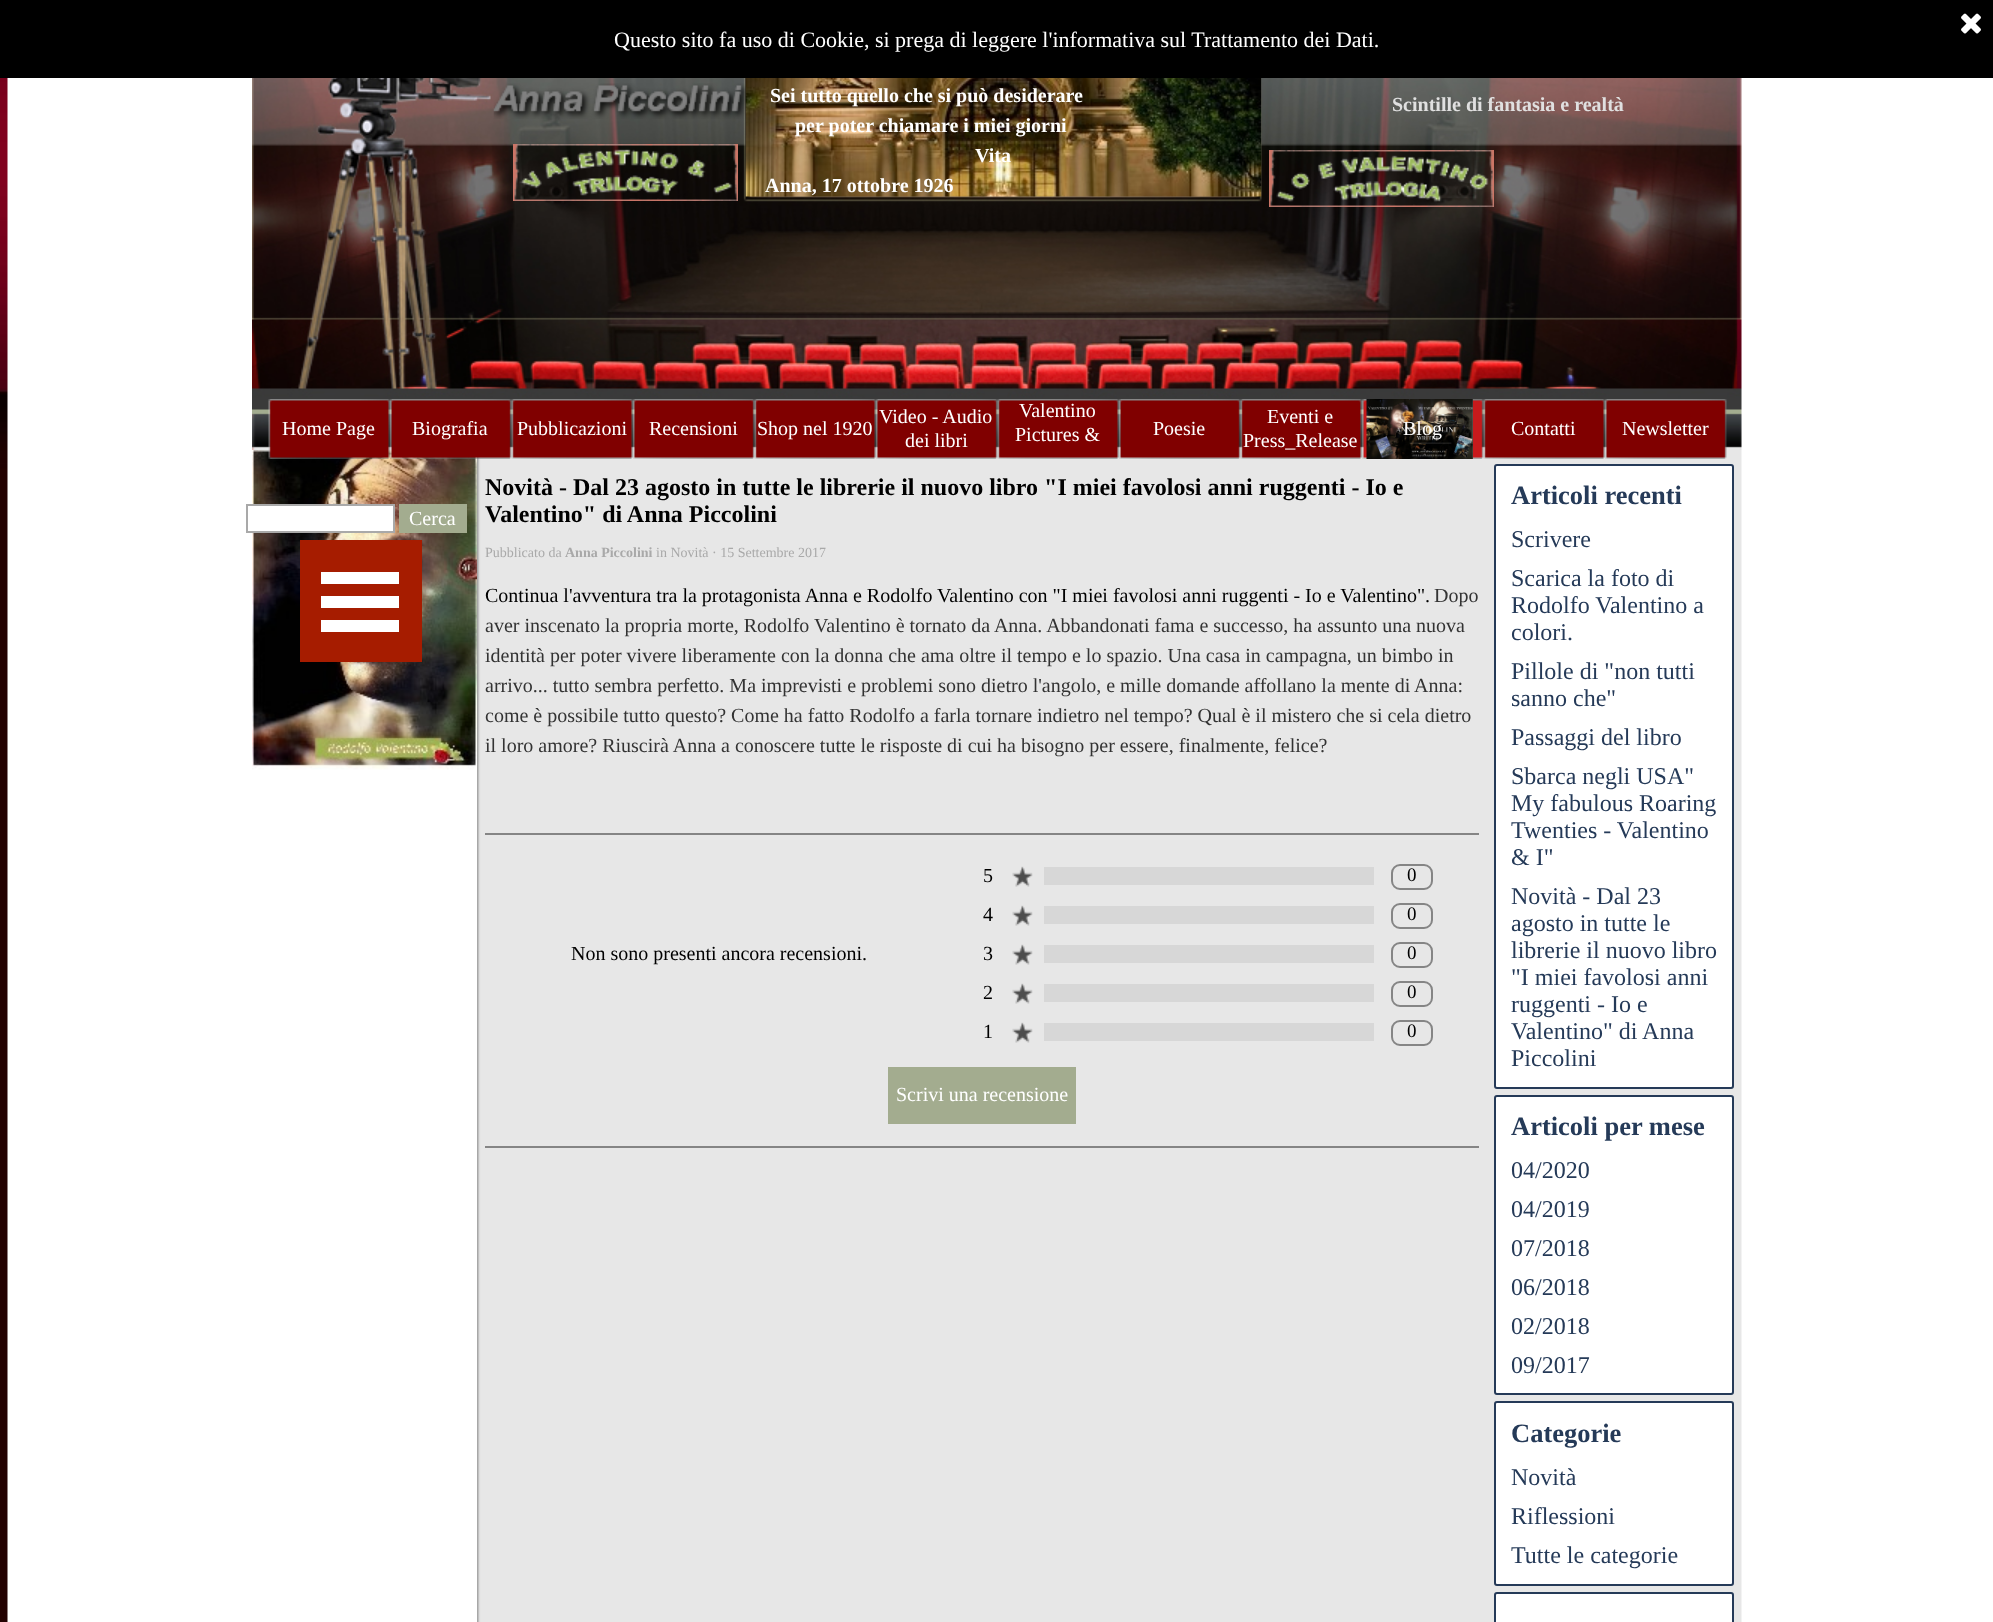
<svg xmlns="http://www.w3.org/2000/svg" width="1993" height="1622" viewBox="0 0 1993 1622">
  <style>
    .t1 { font: 22px Liberation Serif; fill: #fff; }
    .t2 { font: bold 20px Liberation Serif; fill: #fff; }
    .t3 { font: bold 20px Liberation Serif; fill: #e0e0e0; }
    .t4 { font: 20px Liberation Serif; fill: #fff; }
    .t5 { font: bold 24px Liberation Serif; fill: #000; }
    .t6 { font: 14px Liberation Serif; fill: #a9a9a9; }
    .t7 { font: bold 14px Liberation Serif; fill: #a9a9a9; }
    .t8 { font: 20px Liberation Serif; fill: #000; }
    .t9 { font: 20px Liberation Serif; fill: #333; }
    .t10 { font: 19px Liberation Serif; fill: #000; }
    .t11 { font: bold 26.5px Liberation Serif; fill: #253a58; }
    .t12 { font: 24px Liberation Serif; fill: #253a58; }
  </style>
  <rect width="100%" height="100%" fill="#fff"/>
  <rect x="0" y="0" width="1993" height="78" fill="#000"/>
  <image x="1961" y="13" width="20" height="21" href="images/1.png"/>
  <text x="614" y="47" class="t1">Questo sito fa uso di Cookie, si prega di leggere l'informativa sul Trattamento dei Dati.</text>
  <image x="0" y="78" width="8" height="1544" href="images/2.png"/>
  <image x="252" y="78" width="1490" height="372" href="images/3.png"/>
  <image x="493" y="83" width="253" height="36" href="images/4.png"/>
  <image x="745" y="78" width="517" height="119" href="images/5.png"/>
  <text x="770" y="102" class="t2">Sei tutto quello che si può desiderare</text>
  <text x="795" y="132" class="t2">per poter chiamare i miei giorni</text>
  <text x="975" y="162" class="t2">Vita</text>
  <text x="765" y="192" class="t2">Anna, 17 ottobre 1926</text>
  <text x="1392" y="111" class="t3">Scintille di fantasia e realtà</text>
  <image x="513" y="144" width="225" height="57" href="images/6.png"/>
  <image x="1269" y="150" width="225" height="57" href="images/7.png"/>
  <image x="252" y="450" width="225" height="320" href="images/17.png"/>
  <image x="268" y="399" width="122" height="60" href="images/8.png"/>
  <text x="282" y="435" class="t4">Home Page</text>
  <image x="477" y="450" width="1265" height="1172" href="images/16.png"/>
  <image x="390" y="399" width="122" height="60" href="images/9.png"/>
  <text x="412" y="435" class="t4">Biografia</text>
  <image x="511" y="399" width="122" height="60" href="images/10.png"/>
  <text x="517" y="435" class="t4">Pubblicazioni</text>
  <image x="633" y="399" width="122" height="60" href="images/11.png"/>
  <text x="649" y="435" class="t4">Recensioni</text>
  <image x="754" y="399" width="122" height="60" href="images/10.png"/>
  <text x="757" y="435" class="t4">Shop nel 1920</text>
  <image x="876" y="399" width="122" height="60" href="images/11.png"/>
  <text x="879" y="423" class="t4">Video - Audio</text>
  <text x="905" y="447" class="t4">dei libri</text>
  <image x="997" y="399" width="122" height="60" href="images/12.png"/>
  <text x="1019" y="417" class="t4">Valentino</text>
  <text x="1015" y="441" class="t4">Pictures &amp;</text>
  <image x="1119" y="399" width="122" height="60" href="images/13.png"/>
  <text x="1153" y="435" class="t4">Poesie</text>
  <image x="1240" y="399" width="122" height="60" href="images/12.png"/>
  <text x="1267" y="423" class="t4">Eventi e</text>
  <text x="1243" y="447" class="t4">Press_Release</text>
  <image x="1362" y="399" width="122" height="60" href="images/14.png"/>
  <image x="1366" y="399" width="107" height="60" href="images/15.png"/>
  <text x="1403" y="435" class="t4">Blog</text>
  <image x="1483" y="399" width="122" height="60" href="images/10.png"/>
  <text x="1511" y="435" class="t4">Contatti</text>
  <image x="1605" y="399" width="122" height="60" href="images/11.png"/>
  <text x="1622" y="435" class="t4">Newsletter</text>
  <rect x="252" y="506" width="141" height="25" fill="#fff"/>
  <rect x="247" y="505" width="147" height="27" fill="none" stroke="#a9a9a9" stroke-width="2"/>
  <rect x="399" y="504" width="68" height="29" fill="#a3ac8f"/>
  <text x="409" y="525" class="t4">Cerca</text>
  <rect x="300" y="540" width="122" height="122" fill="#a61c00"/>
  <rect x="321" y="572" width="78" height="12" fill="#fff"/>
  <rect x="321" y="596" width="78" height="12" fill="#fff"/>
  <rect x="321" y="620" width="78" height="12" fill="#fff"/>
  <text x="485" y="495" class="t5">Novità - Dal 23 agosto in tutte le librerie il nuovo libro "I miei favolosi anni ruggenti - Io e</text>
  <text x="485" y="522" class="t5">Valentino" di Anna Piccolini</text>
  <text x="485" y="557" class="t6">Pubblicato da</text>
  <text x="565" y="557" class="t7">Anna Piccolini</text>
  <text x="656" y="557" class="t6">in Novità · 15 Settembre 2017</text>
  <text x="485" y="602" class="t8">Continua l'avventura tra la protagonista Anna e Rodolfo Valentino con "I miei favolosi anni ruggenti - Io e Valentino".</text>
  <text x="1434" y="602" class="t9">Dopo</text>
  <text x="485" y="632" class="t9">aver inscenato la propria morte, Rodolfo Valentino è tornato da Anna. Abbandonati fama e successo, ha assunto una nuova</text>
  <text x="485" y="662" class="t9">identità per poter vivere liberamente con la donna che ama oltre il tempo e lo spazio. Una casa in campagna, un bimbo in</text>
  <text x="485" y="692" class="t9">arrivo... tutto sembra perfetto. Ma imprevisti e problemi sono dietro l'angolo, e mille domande affollano la mente di Anna:</text>
  <text x="485" y="722" class="t9">come è possibile tutto questo? Come ha fatto Rodolfo a farla tornare indietro nel tempo? Qual è il mistero che si cela dietro</text>
  <text x="485" y="752" class="t9">il loro amore? Riuscirà Anna a conoscere tutte le risposte di cui ha bisogno per essere, finalmente, felice?</text>
  <rect x="485" y="833" width="994" height="2" fill="#858585"/>
  <rect x="485" y="1146" width="994" height="2" fill="#858585"/>
  <text x="571" y="960" class="t8">Non sono presenti ancora recensioni.</text>
  <text x="983" y="882" class="t8">5</text>
  <image x="1012" y="866" width="21" height="21" href="images/18.png"/>
  <rect x="1044" y="867" width="330" height="18" fill="#d7d7d7"/>
  <rect x="1392" y="865" width="40" height="24" rx="8" fill="none" stroke="#858585" stroke-width="2"/>
  <text x="1407" y="881" class="t10">0</text>
  <text x="983" y="921" class="t8">4</text>
  <image x="1012" y="905" width="21" height="21" href="images/18.png"/>
  <rect x="1044" y="906" width="330" height="18" fill="#d7d7d7"/>
  <rect x="1392" y="904" width="40" height="24" rx="8" fill="none" stroke="#858585" stroke-width="2"/>
  <text x="1407" y="920" class="t10">0</text>
  <text x="983" y="960" class="t8">3</text>
  <image x="1012" y="944" width="21" height="21" href="images/18.png"/>
  <rect x="1044" y="945" width="330" height="18" fill="#d7d7d7"/>
  <rect x="1392" y="943" width="40" height="24" rx="8" fill="none" stroke="#858585" stroke-width="2"/>
  <text x="1407" y="959" class="t10">0</text>
  <text x="983" y="999" class="t8">2</text>
  <image x="1012" y="983" width="21" height="21" href="images/18.png"/>
  <rect x="1044" y="984" width="330" height="18" fill="#d7d7d7"/>
  <rect x="1392" y="982" width="40" height="24" rx="8" fill="none" stroke="#858585" stroke-width="2"/>
  <text x="1407" y="998" class="t10">0</text>
  <text x="983" y="1038" class="t8">1</text>
  <image x="1012" y="1022" width="21" height="21" href="images/18.png"/>
  <rect x="1044" y="1023" width="330" height="18" fill="#d7d7d7"/>
  <rect x="1392" y="1021" width="40" height="24" rx="8" fill="none" stroke="#858585" stroke-width="2"/>
  <text x="1407" y="1037" class="t10">0</text>
  <rect x="888" y="1067" width="188" height="57" fill="#a3ac8f"/>
  <text x="896" y="1101" class="t4">Scrivi una recensione</text>
  <rect x="1495" y="465" width="238" height="623" rx="2" fill="#fff" stroke="#253a58" stroke-width="2"/>
  <text x="1511" y="504" class="t11">Articoli recenti</text>
  <text x="1511" y="547" class="t12">Scrivere</text>
  <text x="1511" y="586" class="t12">Scarica la foto di</text>
  <text x="1511" y="613" class="t12">Rodolfo Valentino a</text>
  <text x="1511" y="640" class="t12">colori.</text>
  <text x="1511" y="679" class="t12">Pillole di "non tutti</text>
  <text x="1511" y="706" class="t12">sanno che"</text>
  <text x="1511" y="745" class="t12">Passaggi del libro</text>
  <text x="1511" y="784" class="t12">Sbarca negli USA"</text>
  <text x="1511" y="811" class="t12">My fabulous Roaring</text>
  <text x="1511" y="838" class="t12">Twenties - Valentino</text>
  <text x="1511" y="865" class="t12">&amp; I"</text>
  <text x="1511" y="904" class="t12">Novità - Dal 23</text>
  <text x="1511" y="931" class="t12">agosto in tutte le</text>
  <text x="1511" y="958" class="t12">librerie il nuovo libro</text>
  <text x="1511" y="985" class="t12">"I miei favolosi anni</text>
  <text x="1511" y="1012" class="t12">ruggenti - Io e</text>
  <text x="1511" y="1039" class="t12">Valentino" di Anna</text>
  <text x="1511" y="1066" class="t12">Piccolini</text>
  <rect x="1495" y="1096" width="238" height="298" rx="2" fill="#fff" stroke="#253a58" stroke-width="2"/>
  <text x="1511" y="1135" class="t11">Articoli per mese</text>
  <text x="1511" y="1178" class="t12">04/2020</text>
  <text x="1511" y="1217" class="t12">04/2019</text>
  <text x="1511" y="1256" class="t12">07/2018</text>
  <text x="1511" y="1295" class="t12">06/2018</text>
  <text x="1511" y="1334" class="t12">02/2018</text>
  <text x="1511" y="1373" class="t12">09/2017</text>
  <rect x="1495" y="1402" width="238" height="183" rx="2" fill="#fff" stroke="#253a58" stroke-width="2"/>
  <text x="1511" y="1442" class="t11">Categorie</text>
  <text x="1511" y="1485" class="t12">Novità</text>
  <text x="1511" y="1524" class="t12">Riflessioni</text>
  <text x="1511" y="1563" class="t12">Tutte le categorie</text>
  <rect x="1495" y="1593" width="238" height="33" rx="2" fill="#fff" stroke="#253a58" stroke-width="2"/>
</svg>
